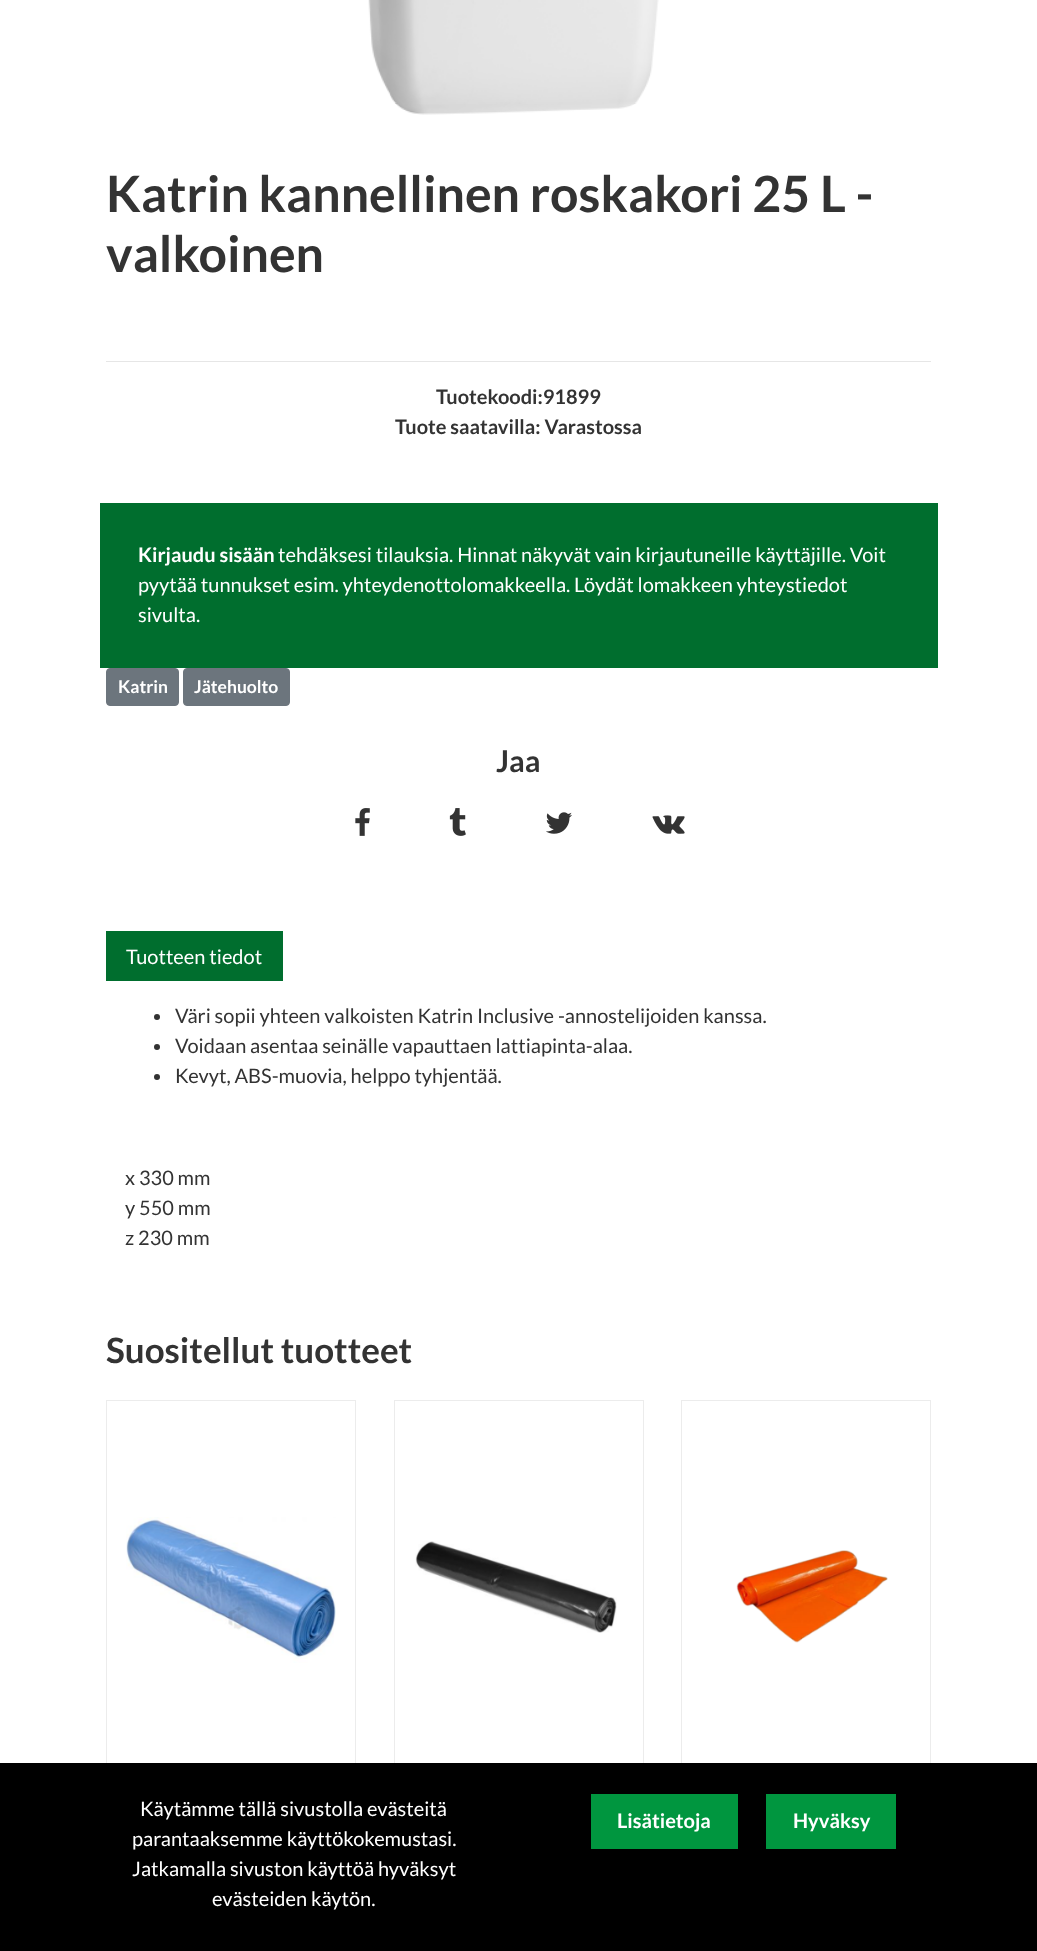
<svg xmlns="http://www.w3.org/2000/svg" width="1037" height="1951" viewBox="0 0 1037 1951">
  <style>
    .t1 { font: bold 50px Lato; fill: #333; }
    .t2 { font: bold 20px Lato; fill: #333; }
    .t3 { font: bold 20px Lato; fill: #fff; }
    .t4 { font: 20px Lato; fill: #fff; }
    .t5 { font: bold 17.5px Lato; fill: #fff; }
    .t6 { font: bold 30px Lato; fill: #333; }
    .t7 { font: 20px Lato; fill: #333; }
    .t8 { font: bold 35px Lato; fill: #333; }
  </style>
  <rect width="100%" height="100%" fill="#fff"/>
  <image x="368" y="0" width="291" height="115" href="images/1.png"/>
  <text x="106" y="212" class="t1">Katrin kannellinen roskakori 25 L -</text>
  <text x="106" y="272" class="t1">valkoinen</text>
  <rect x="106" y="361" width="825" height="1" fill="#e6e6e6"/>
  <text x="436" y="404" class="t2">Tuotekoodi:91899</text>
  <text x="395" y="434" class="t2">Tuote saatavilla: Varastossa</text>
  <rect x="100" y="503" width="838" height="165" fill="#006e2e"/>
  <text x="138" y="562" class="t3">Kirjaudu sisään</text>
  <text x="278" y="562" class="t4">tehdäksesi tilauksia. Hinnat näkyvät vain kirjautuneille käyttäjille. Voit</text>
  <text x="138" y="592" class="t4">pyytää tunnukset esim. yhteydenottolomakkeella. Löydät lomakkeen yhteystiedot</text>
  <text x="138" y="622" class="t4">sivulta.</text>
  <rect x="106.5" y="668.5" width="72" height="37" rx="3.5" fill="#6c757d" stroke="#6c757d"/>
  <text x="118" y="693" class="t5">Katrin</text>
  <rect x="183.5" y="668.5" width="106" height="37" rx="3.5" fill="#6c757d" stroke="#6c757d"/>
  <text x="194" y="693" class="t5">Jätehuolto</text>
  <text x="496" y="772" class="t6">Jaa</text>
  <image x="355" y="808" width="15" height="28" href="images/2.png"/>
  <image x="449" y="808" width="17" height="28" href="images/3.png"/>
  <image x="546" y="812" width="26" height="22" href="images/4.png"/>
  <image x="652" y="815" width="33" height="19" href="images/5.png"/>
  <rect x="106" y="931" width="177" height="50" fill="#006e2e"/>
  <text x="126" y="964" class="t4">Tuotteen tiedot</text>
  <circle cx="157" cy="1017" r="3" fill="#333"/>
  <text x="175" y="1023" class="t7">Väri sopii yhteen valkoisten Katrin Inclusive -annostelijoiden kanssa.</text>
  <circle cx="157" cy="1047" r="3" fill="#333"/>
  <text x="175" y="1053" class="t7">Voidaan asentaa seinälle vapauttaen lattiapinta-alaa.</text>
  <circle cx="157" cy="1077" r="3" fill="#333"/>
  <text x="175" y="1083" class="t7">Kevyt, ABS-muovia, helppo tyhjentää.</text>
  <text x="125" y="1185" class="t7">x 330 mm</text>
  <text x="125" y="1215" class="t7">y 550 mm</text>
  <text x="125" y="1245" class="t7">z 230 mm</text>
  <text x="106" y="1363" class="t8">Suositellut tuotteet</text>
  <rect x="106.5" y="1400.5" width="249" height="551" fill="none" stroke="#ececec"/>
  <image x="126" y="1517" width="210" height="146" href="images/6.png"/>
  <rect x="394.5" y="1400.5" width="249" height="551" fill="none" stroke="#ececec"/>
  <image x="415" y="1541" width="202" height="92" href="images/7.png"/>
  <rect x="681.5" y="1400.5" width="249" height="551" fill="none" stroke="#ececec"/>
  <image x="736" y="1550" width="152" height="93" href="images/8.png"/>
  <rect x="0" y="1763" width="1037" height="188" fill="#000"/>
  <text x="140" y="1816" class="t4">Käytämme tällä sivustolla evästeitä</text>
  <text x="132" y="1846" class="t4">parantaaksemme käyttökokemustasi.</text>
  <text x="132" y="1876" class="t4">Jatkamalla sivuston käyttöä hyväksyt</text>
  <text x="212" y="1906" class="t4">evästeiden käytön.</text>
  <rect x="591" y="1794" width="147" height="55" fill="#00963f"/>
  <text x="617" y="1828" class="t3">Lisätietoja</text>
  <rect x="766" y="1794" width="130" height="55" fill="#00963f"/>
  <text x="793" y="1828" class="t3">Hyväksy</text>
</svg>
